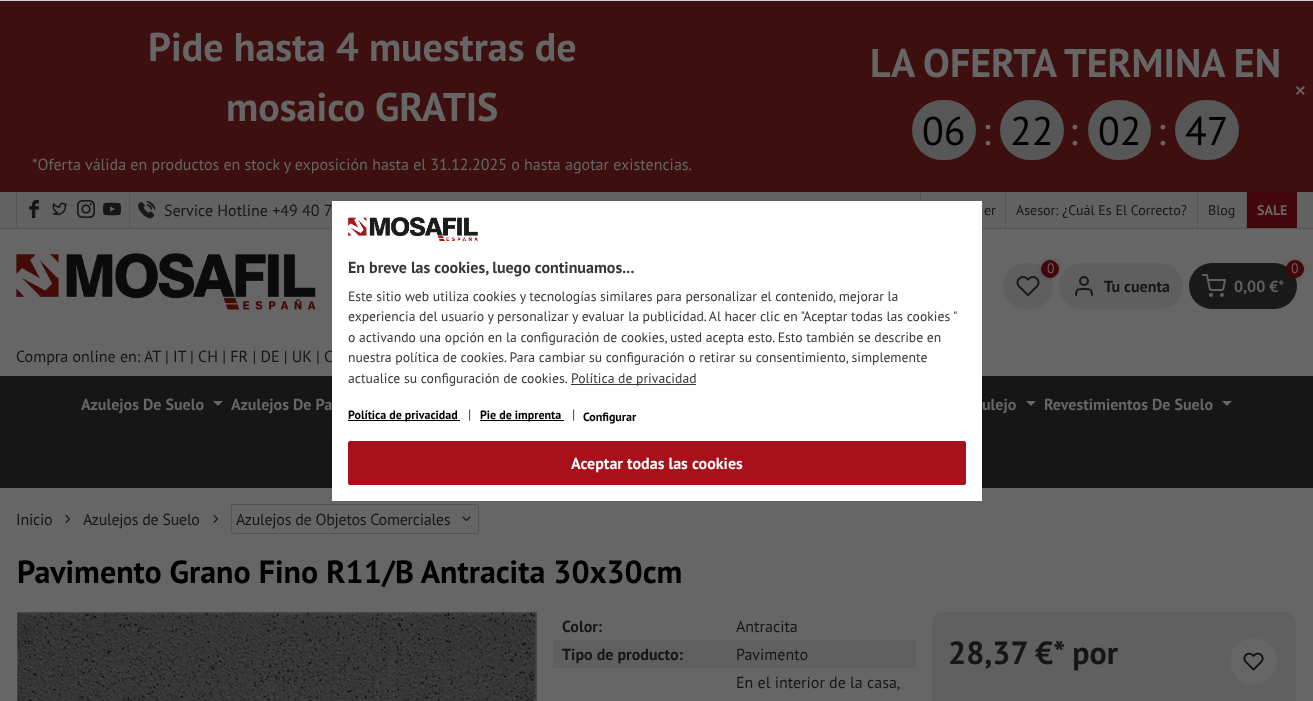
<svg xmlns="http://www.w3.org/2000/svg" width="1313" height="701" viewBox="0 0 1313 701">
  <style>
    .t1 { font: bold 40px PT Sans; fill: #666; }
    .t2 { font: 16px PT Sans; fill: #666; }
    .t3 { font: 40px PT Sans; fill: #000; }
    .t4 { font: 40px PT Sans; fill: #666; }
    .t5 { font: 25px PT Sans; fill: #666; }
    .t6 { font: 16px PT Sans; fill: #161616; }
    .t7 { font: 14px PT Sans; fill: #161616; }
    .t8 { font: bold 14px PT Sans; fill: #666; }
    .t9 { font: 13.7px PT Sans; fill: #666; }
    .t10 { font: bold 16px PT Sans; fill: #161616; }
    .t11 { font: bold 16px PT Sans; fill: #5f5f5f; }
    .t12 { font: bold 16px PT Sans; fill: #666; }
    .t13 { font: bold 16px PT Sans; fill: #373737; }
    .t14 { font: 13.7px PT Sans; fill: #373737; }
    .t15 { font: bold 12px PT Sans; fill: #000; }
    .t16 { font: bold 16px PT Sans; fill: #fff; }
    .t17 { font: 16px PT Sans; letter-spacing: -0.25px; fill: #161616; }
    .t18 { font: bold 32px PT Sans; fill: #000; }
    .t19 { font: bold 32px PT Sans; fill: #161616; }
  </style>
  <rect width="100%" height="100%" fill="#666"/>
  <rect x="0" y="1" width="1313" height="191" fill="#3e0f0f"/>
  <text x="148" y="61" class="t1">Pide hasta 4 muestras de</text>
  <text x="226" y="121" class="t1">mosaico GRATIS</text>
  <text x="32" y="170" class="t2">*Oferta válida en productos en stock y exposición hasta el 31.12.2025 o hasta agotar existencias.</text>
  <text x="870" y="77" class="t1">LA OFERTA TERMINA EN</text>
  <rect x="912" y="100" width="64" height="60" rx="30" fill="#575757"/>
  <text x="922" y="145" class="t3">06</text>
  <text x="982" y="145" class="t4">:</text>
  <rect x="1000" y="100" width="64" height="60" rx="30" fill="#575757"/>
  <text x="1010" y="145" class="t3">22</text>
  <text x="1069" y="145" class="t4">:</text>
  <rect x="1088" y="100" width="63" height="60" rx="30" fill="#575757"/>
  <text x="1098" y="145" class="t3">02</text>
  <text x="1157" y="145" class="t4">:</text>
  <rect x="1175" y="100" width="64" height="60" rx="30" fill="#575757"/>
  <text x="1185" y="145" class="t3">47</text>
  <text x="1294" y="99" class="t5">×</text>
  <rect x="0" y="192" width="1313" height="36" fill="#626262"/>
  <rect x="0" y="228" width="1313" height="1" fill="#575757"/>
  <rect x="16" y="192" width="1" height="36" fill="#575757"/>
  <image x="29" y="200" width="10" height="18" href="images/1.png"/>
  <image x="52" y="202" width="15" height="14" href="images/2.png"/>
  <image x="77" y="200" width="18" height="18" href="images/3.png"/>
  <image x="103" y="202" width="18" height="14" href="images/4.png"/>
  <rect x="129" y="192" width="1" height="36" fill="#575757"/>
  <image x="138" y="201" width="18" height="18" href="images/5.png"/>
  <text x="164" y="216" class="t6">Service Hotline +49 40 7</text>
  <rect x="920" y="192" width="1" height="9" fill="#575757"/>
  <text x="984" y="215" class="t7">er</text>
  <rect x="1005" y="192" width="1" height="36" fill="#575757"/>
  <text x="1016" y="215" class="t7">Asesor: ¿Cuál Es El Correcto?</text>
  <rect x="1197" y="192" width="1" height="36" fill="#575757"/>
  <text x="1208" y="215" class="t7">Blog</text>
  <rect x="1247" y="192" width="50" height="36" fill="#43070b"/>
  <rect x="1246" y="192" width="1" height="36" fill="#575757"/>
  <text x="1257" y="215" class="t8">SALE</text>
  <image x="16" y="253" width="300" height="57" href="images/6.png"/>
  <rect x="1003" y="263" width="50" height="46" rx="23" fill="#5f5f5f"/>
  <image x="1016" y="276" width="24" height="21" href="images/7.png"/>
  <rect x="1059" y="263" width="124" height="46" rx="23" fill="#5f5f5f"/>
  <rect x="1041" y="260" width="18" height="18" rx="9" fill="#0000002b" filter="blur(2px)"/>
  <circle cx="1050" cy="269" r="8.5" fill="#43070b" stroke="#43070b"/>
  <text x="1047" y="273" class="t9">0</text>
  <path d="M1092 295C1092 288.5 1089.5 289 1084 289C1078.5 289 1076 288.5 1076 295" fill="none" stroke="#191919" stroke-width="2" stroke-linecap="round" stroke-linejoin="round"/>
  <circle cx="1084" cy="281" r="4" fill="none" stroke="#191919" stroke-width="2"/>
  <text x="1104" y="292" class="t10">Tu cuenta</text>
  <rect x="1189" y="263" width="108" height="46" rx="23" fill="#191919"/>
  <rect x="1286" y="260" width="18" height="18" rx="9" fill="#0000002b" filter="blur(2px)"/>
  <circle cx="1295" cy="269" r="8.5" fill="#43070b" stroke="#43070b"/>
  <text x="1291" y="273" class="t9">0</text>
  <image x="1202" y="274" width="24" height="23" href="images/8.png"/>
  <text x="1234" y="292" class="t11">0,00 €*</text>
  <text x="16" y="362" class="t6">Compra online en:</text>
  <text x="144" y="362" class="t6">AT</text>
  <text x="165" y="362" class="t6">| IT</text>
  <text x="190" y="362" class="t6">| CH | FR | DE | UK</text>
  <text x="316" y="362" class="t6">| C</text>
  <rect x="0" y="376" width="1313" height="112" fill="#161616"/>
  <text x="81" y="410" class="t12">Azulejos De Suelo</text>
  <path d="M213 401H223L218 406Z" fill="#666"/>
  <text x="231" y="410" class="t12">Azulejos De Pa</text>
  <text x="982" y="410" class="t12">ulejo</text>
  <path d="M1026 401H1036L1031 406Z" fill="#666"/>
  <text x="1044" y="410" class="t12">Revestimientos De Suelo</text>
  <path d="M1222 401H1232L1227 406Z" fill="#666"/>
  <rect x="0" y="0" width="1313" height="1" fill="#d1d5db"/>
  <rect x="332" y="201" width="650" height="300" fill="#fff"/>
  <image x="348" y="216" width="130" height="25" href="images/9.png"/>
  <text x="348" y="273" class="t13">En breve las cookies, luego continuamos...</text>
  <text x="348" y="301" class="t14">Este sitio web utiliza cookies y tecnologías similares para personalizar el contenido, mejorar la</text>
  <text x="348" y="321" class="t14">experiencia del usuario y personalizar y evaluar la publicidad. Al hacer clic en "Aceptar todas las cookies "</text>
  <text x="348" y="342" class="t14">o activando una opción en la configuración de cookies, usted acepta esto. Esto también se describe en</text>
  <text x="348" y="362" class="t14">nuestra política de cookies. Para cambiar su configuración o retirar su consentimiento, simplemente</text>
  <text x="348" y="383" class="t14">actualice su configuración de cookies.</text>
  <rect x="571" y="384" width="125" height="1" fill="#373737"/>
  <text x="571" y="383" class="t14">Política de privacidad</text>
  <rect x="348" y="420" width="112" height="1" fill="#000"/>
  <text x="348" y="419" class="t15">Política de privacidad</text>
  <text x="468" y="419" class="t14">|</text>
  <rect x="480" y="420" width="84" height="1" fill="#000"/>
  <text x="480" y="419" class="t15">Pie de imprenta</text>
  <text x="572" y="419" class="t14">|</text>
  <text x="583" y="421" class="t15">Configurar</text>
  <rect x="348.5" y="441.5" width="617" height="43" rx="1.5" fill="#a8111c" stroke="#a8111c"/>
  <text x="571" y="469" class="t16">Aceptar todas las cookies</text>
  <text x="16" y="525" class="t17">Inicio</text>
  <path d="M66 522.5L69.5 519L66 515.5" fill="none" stroke="#161616" stroke-width="1.1" stroke-linecap="round" stroke-linejoin="round"/>
  <text x="83" y="525" class="t17">Azulejos de Suelo</text>
  <path d="M214 522.5L217.5 519L214 515.5" fill="none" stroke="#161616" stroke-width="1.1" stroke-linecap="round" stroke-linejoin="round"/>
  <rect x="231.5" y="504.5" width="247" height="29" rx="1.5" fill="none" stroke="#545558"/>
  <text x="236" y="525" class="t17">Azulejos de Objetos Comerciales</text>
  <path d="M463 517L466.5 520.5L470 517" fill="none" stroke="#161616" stroke-width="1.1" stroke-linecap="round" stroke-linejoin="round"/>
  <text x="17" y="583" class="t18">Pavimento Grano Fino R11/B Antracita 30x30cm</text>
  <rect x="17.5" y="612.5" width="519" height="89" fill="none" stroke="#464646"/>
  <image x="17" y="612" width="519" height="89" href="images/10.png"/>
  <text x="562" y="632" class="t10">Color:</text>
  <text x="736" y="632" class="t6">Antracita</text>
  <rect x="553" y="640" width="363" height="28" fill="#606060"/>
  <text x="562" y="660" class="t10">Tipo de producto:</text>
  <text x="736" y="660" class="t6">Pavimento</text>
  <text x="736" y="688" class="t6">En el interior de la casa,</text>
  <rect x="932" y="612" width="364" height="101" rx="12" fill="#606060"/>
  <text x="948" y="664" class="t19">28,37 €* por</text>
  <circle cx="1253.5" cy="661.5" r="23.5" fill="#666"/>
  <image x="1243" y="652" width="21" height="19" href="images/11.png"/>
</svg>
